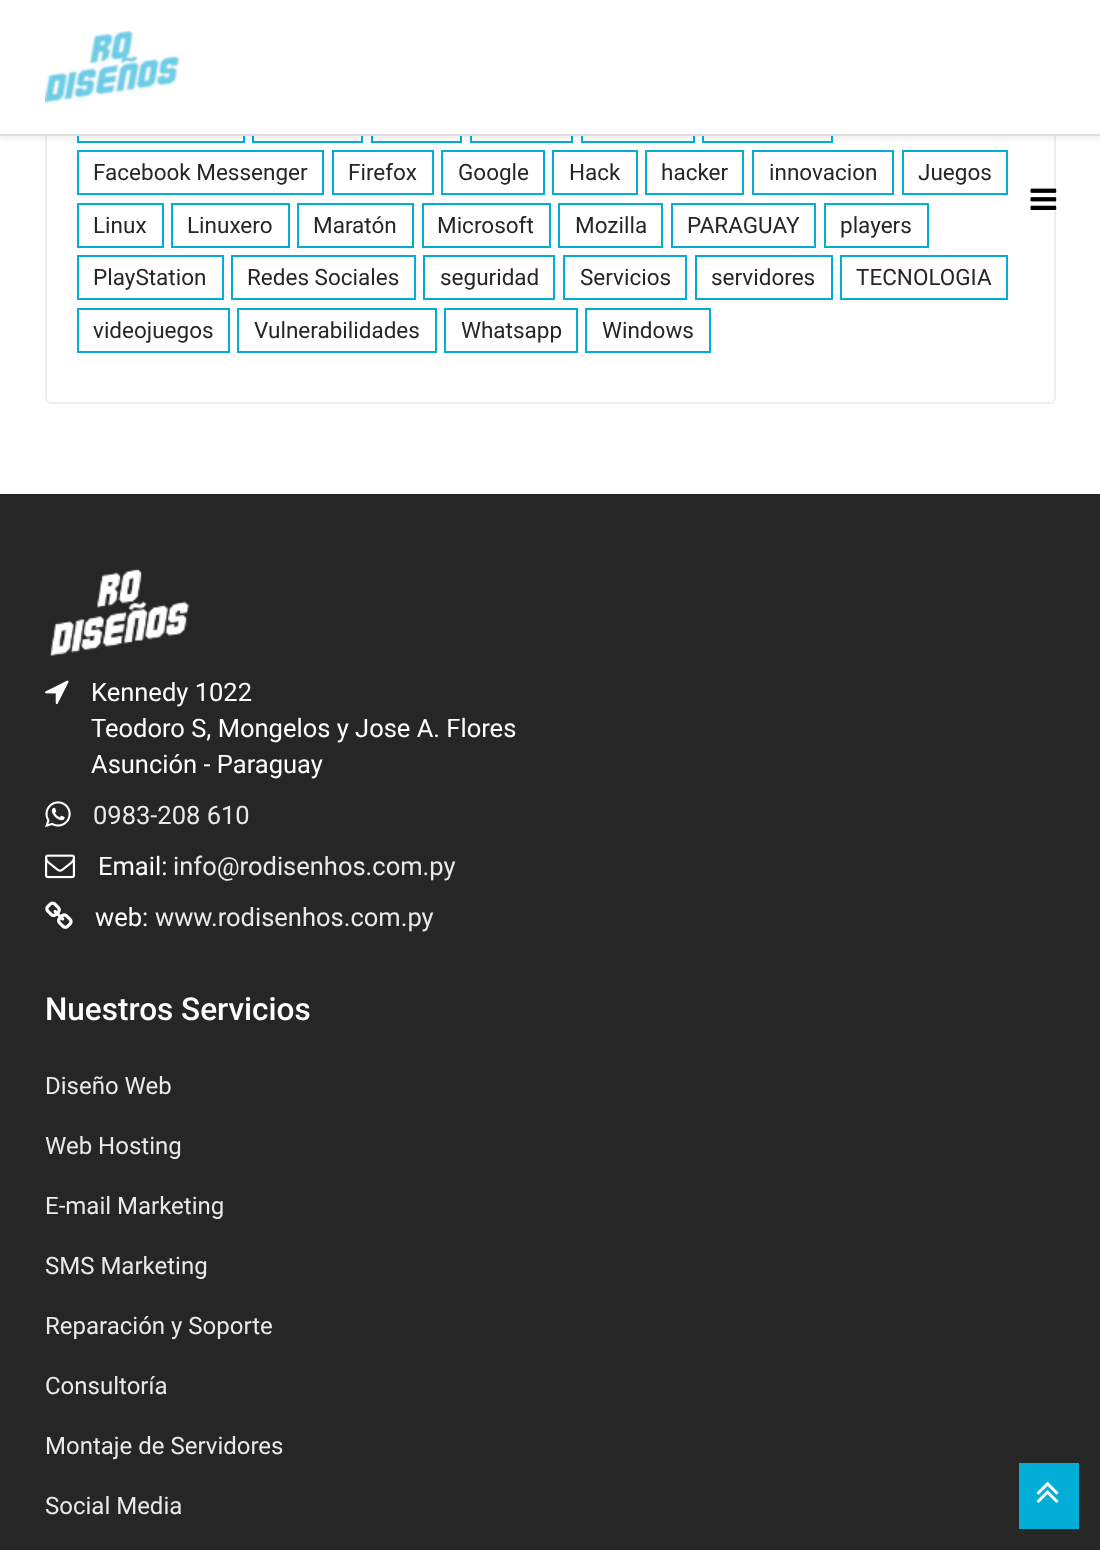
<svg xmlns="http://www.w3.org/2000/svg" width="1100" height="1550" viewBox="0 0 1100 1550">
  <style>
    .t1 { font: 22.5px Roboto; fill: #262626; }
    .t2 { font: 25.5px Roboto; fill: #fff; }
    .t3 { font: 25.5px Roboto; fill: #e9e9e9; }
    .t4 { font: 500 31.5px Roboto; fill: #fff; }
    .t5 { font: 24px Roboto; fill: #e9e9e9; }
  </style>
  <rect width="100%" height="100%" fill="#fff"/>
  <rect x="46" y="-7" width="1009" height="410" rx="5" fill="none" stroke="#eee" stroke-width="2"/>
  <rect x="78" y="99" width="166" height="43" fill="none" stroke="#02aed6" stroke-width="2"/>
  <rect x="253" y="99" width="109" height="43" fill="none" stroke="#02aed6" stroke-width="2"/>
  <rect x="372" y="99" width="89" height="43" fill="none" stroke="#02aed6" stroke-width="2"/>
  <rect x="471" y="99" width="101" height="43" fill="none" stroke="#02aed6" stroke-width="2"/>
  <rect x="582" y="99" width="112" height="43" fill="none" stroke="#02aed6" stroke-width="2"/>
  <rect x="703" y="99" width="129" height="43" fill="none" stroke="#02aed6" stroke-width="2"/>
  <rect x="0" y="5" width="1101" height="135" fill="#0000000d" filter="blur(2px)"/>
  <rect x="0" y="0" width="1100" height="134" fill="#fff"/>
  <rect x="0" y="134" width="1100" height="2" fill="#ddd"/>
  <image x="45" y="29" width="135" height="75" href="images/1.png"/>
  <image x="1030" y="188" width="27" height="22" href="images/2.png"/>
  <rect x="78" y="151" width="245" height="43" fill="none" stroke="#02aed6" stroke-width="2"/>
  <text x="93" y="180" class="t1">Facebook Messenger</text>
  <rect x="333" y="151" width="100" height="43" fill="none" stroke="#02aed6" stroke-width="2"/>
  <text x="348" y="180" class="t1">Firefox</text>
  <rect x="442" y="151" width="102" height="43" fill="none" stroke="#02aed6" stroke-width="2"/>
  <text x="458" y="180" class="t1">Google</text>
  <rect x="553" y="151" width="84" height="43" fill="none" stroke="#02aed6" stroke-width="2"/>
  <text x="569" y="180" class="t1">Hack</text>
  <rect x="646" y="151" width="97" height="43" fill="none" stroke="#02aed6" stroke-width="2"/>
  <text x="661" y="180" class="t1">hacker</text>
  <rect x="753" y="151" width="140" height="43" fill="none" stroke="#02aed6" stroke-width="2"/>
  <text x="769" y="180" class="t1">innovacion</text>
  <rect x="903" y="151" width="104" height="43" fill="none" stroke="#02aed6" stroke-width="2"/>
  <text x="918" y="180" class="t1">Juegos</text>
  <rect x="78" y="204" width="85" height="43" fill="none" stroke="#02aed6" stroke-width="2"/>
  <text x="93" y="233" class="t1">Linux</text>
  <rect x="172" y="204" width="117" height="43" fill="none" stroke="#02aed6" stroke-width="2"/>
  <text x="187" y="233" class="t1">Linuxero</text>
  <rect x="298" y="204" width="115" height="43" fill="none" stroke="#02aed6" stroke-width="2"/>
  <text x="313" y="233" class="t1">Maratón</text>
  <rect x="423" y="204" width="127" height="43" fill="none" stroke="#02aed6" stroke-width="2"/>
  <text x="437" y="233" class="t1">Microsoft</text>
  <rect x="559" y="204" width="103" height="43" fill="none" stroke="#02aed6" stroke-width="2"/>
  <text x="575" y="233" class="t1">Mozilla</text>
  <rect x="672" y="204" width="143" height="43" fill="none" stroke="#02aed6" stroke-width="2"/>
  <text x="687" y="233" class="t1">PARAGUAY</text>
  <rect x="825" y="204" width="103" height="43" fill="none" stroke="#02aed6" stroke-width="2"/>
  <text x="840" y="233" class="t1">players</text>
  <rect x="78" y="256" width="145" height="43" fill="none" stroke="#02aed6" stroke-width="2"/>
  <text x="93" y="285" class="t1">PlayStation</text>
  <rect x="232" y="256" width="183" height="43" fill="none" stroke="#02aed6" stroke-width="2"/>
  <text x="247" y="285" class="t1">Redes Sociales</text>
  <rect x="424" y="256" width="130" height="43" fill="none" stroke="#02aed6" stroke-width="2"/>
  <text x="440" y="285" class="t1">seguridad</text>
  <rect x="564" y="256" width="122" height="43" fill="none" stroke="#02aed6" stroke-width="2"/>
  <text x="580" y="285" class="t1">Servicios</text>
  <rect x="696" y="256" width="136" height="43" fill="none" stroke="#02aed6" stroke-width="2"/>
  <text x="711" y="285" class="t1">servidores</text>
  <rect x="841" y="256" width="166" height="43" fill="none" stroke="#02aed6" stroke-width="2"/>
  <text x="856" y="285" class="t1">TECNOLOGIA</text>
  <rect x="78" y="309" width="151" height="43" fill="none" stroke="#02aed6" stroke-width="2"/>
  <text x="93" y="338" class="t1">videojuegos</text>
  <rect x="238" y="309" width="198" height="43" fill="none" stroke="#02aed6" stroke-width="2"/>
  <text x="254" y="338" class="t1">Vulnerabilidades</text>
  <rect x="445" y="309" width="132" height="43" fill="none" stroke="#02aed6" stroke-width="2"/>
  <text x="461" y="338" class="t1">Whatsapp</text>
  <rect x="586" y="309" width="124" height="43" fill="none" stroke="#02aed6" stroke-width="2"/>
  <text x="602" y="338" class="t1">Windows</text>
  <rect x="0" y="494" width="1100" height="1056" fill="#262626"/>
  <image x="49" y="568" width="141" height="88" href="images/3.png"/>
  <image x="45" y="680" width="24" height="25" href="images/4.png"/>
  <text x="91" y="701" class="t2">Kennedy 1022</text>
  <text x="91" y="737" class="t2">Teodoro S, Mongelos y Jose A. Flores</text>
  <text x="91" y="773" class="t2">Asunción - Paraguay</text>
  <image x="45" y="801" width="26" height="27" href="images/5.png"/>
  <text x="93" y="824" class="t3">0983-208 610</text>
  <image x="45" y="854" width="30" height="25" href="images/6.png"/>
  <text x="98" y="875" class="t2">Email:</text>
  <text x="173" y="875" class="t3">info@rodisenhos.com.py</text>
  <image x="45" y="901" width="28" height="28" href="images/7.png"/>
  <text x="95" y="926" class="t2">web:</text>
  <text x="155" y="926" class="t3">www.rodisenhos.com.py</text>
  <text x="45" y="1020" class="t4">Nuestros Servicios</text>
  <text x="45" y="1094" class="t5">Diseño Web</text>
  <text x="45" y="1154" class="t5">Web Hosting</text>
  <text x="45" y="1214" class="t5">E-mail Marketing</text>
  <text x="45" y="1274" class="t5">SMS Marketing</text>
  <text x="45" y="1334" class="t5">Reparación y Soporte</text>
  <text x="45" y="1394" class="t5">Consultoría</text>
  <text x="45" y="1454" class="t5">Montaje de Servidores</text>
  <text x="45" y="1514" class="t5">Social Media</text>
  <rect x="1019" y="1463" width="60" height="66" fill="#02aed6"/>
  <image x="1036" y="1482" width="23" height="21" href="images/8.png"/>
</svg>
